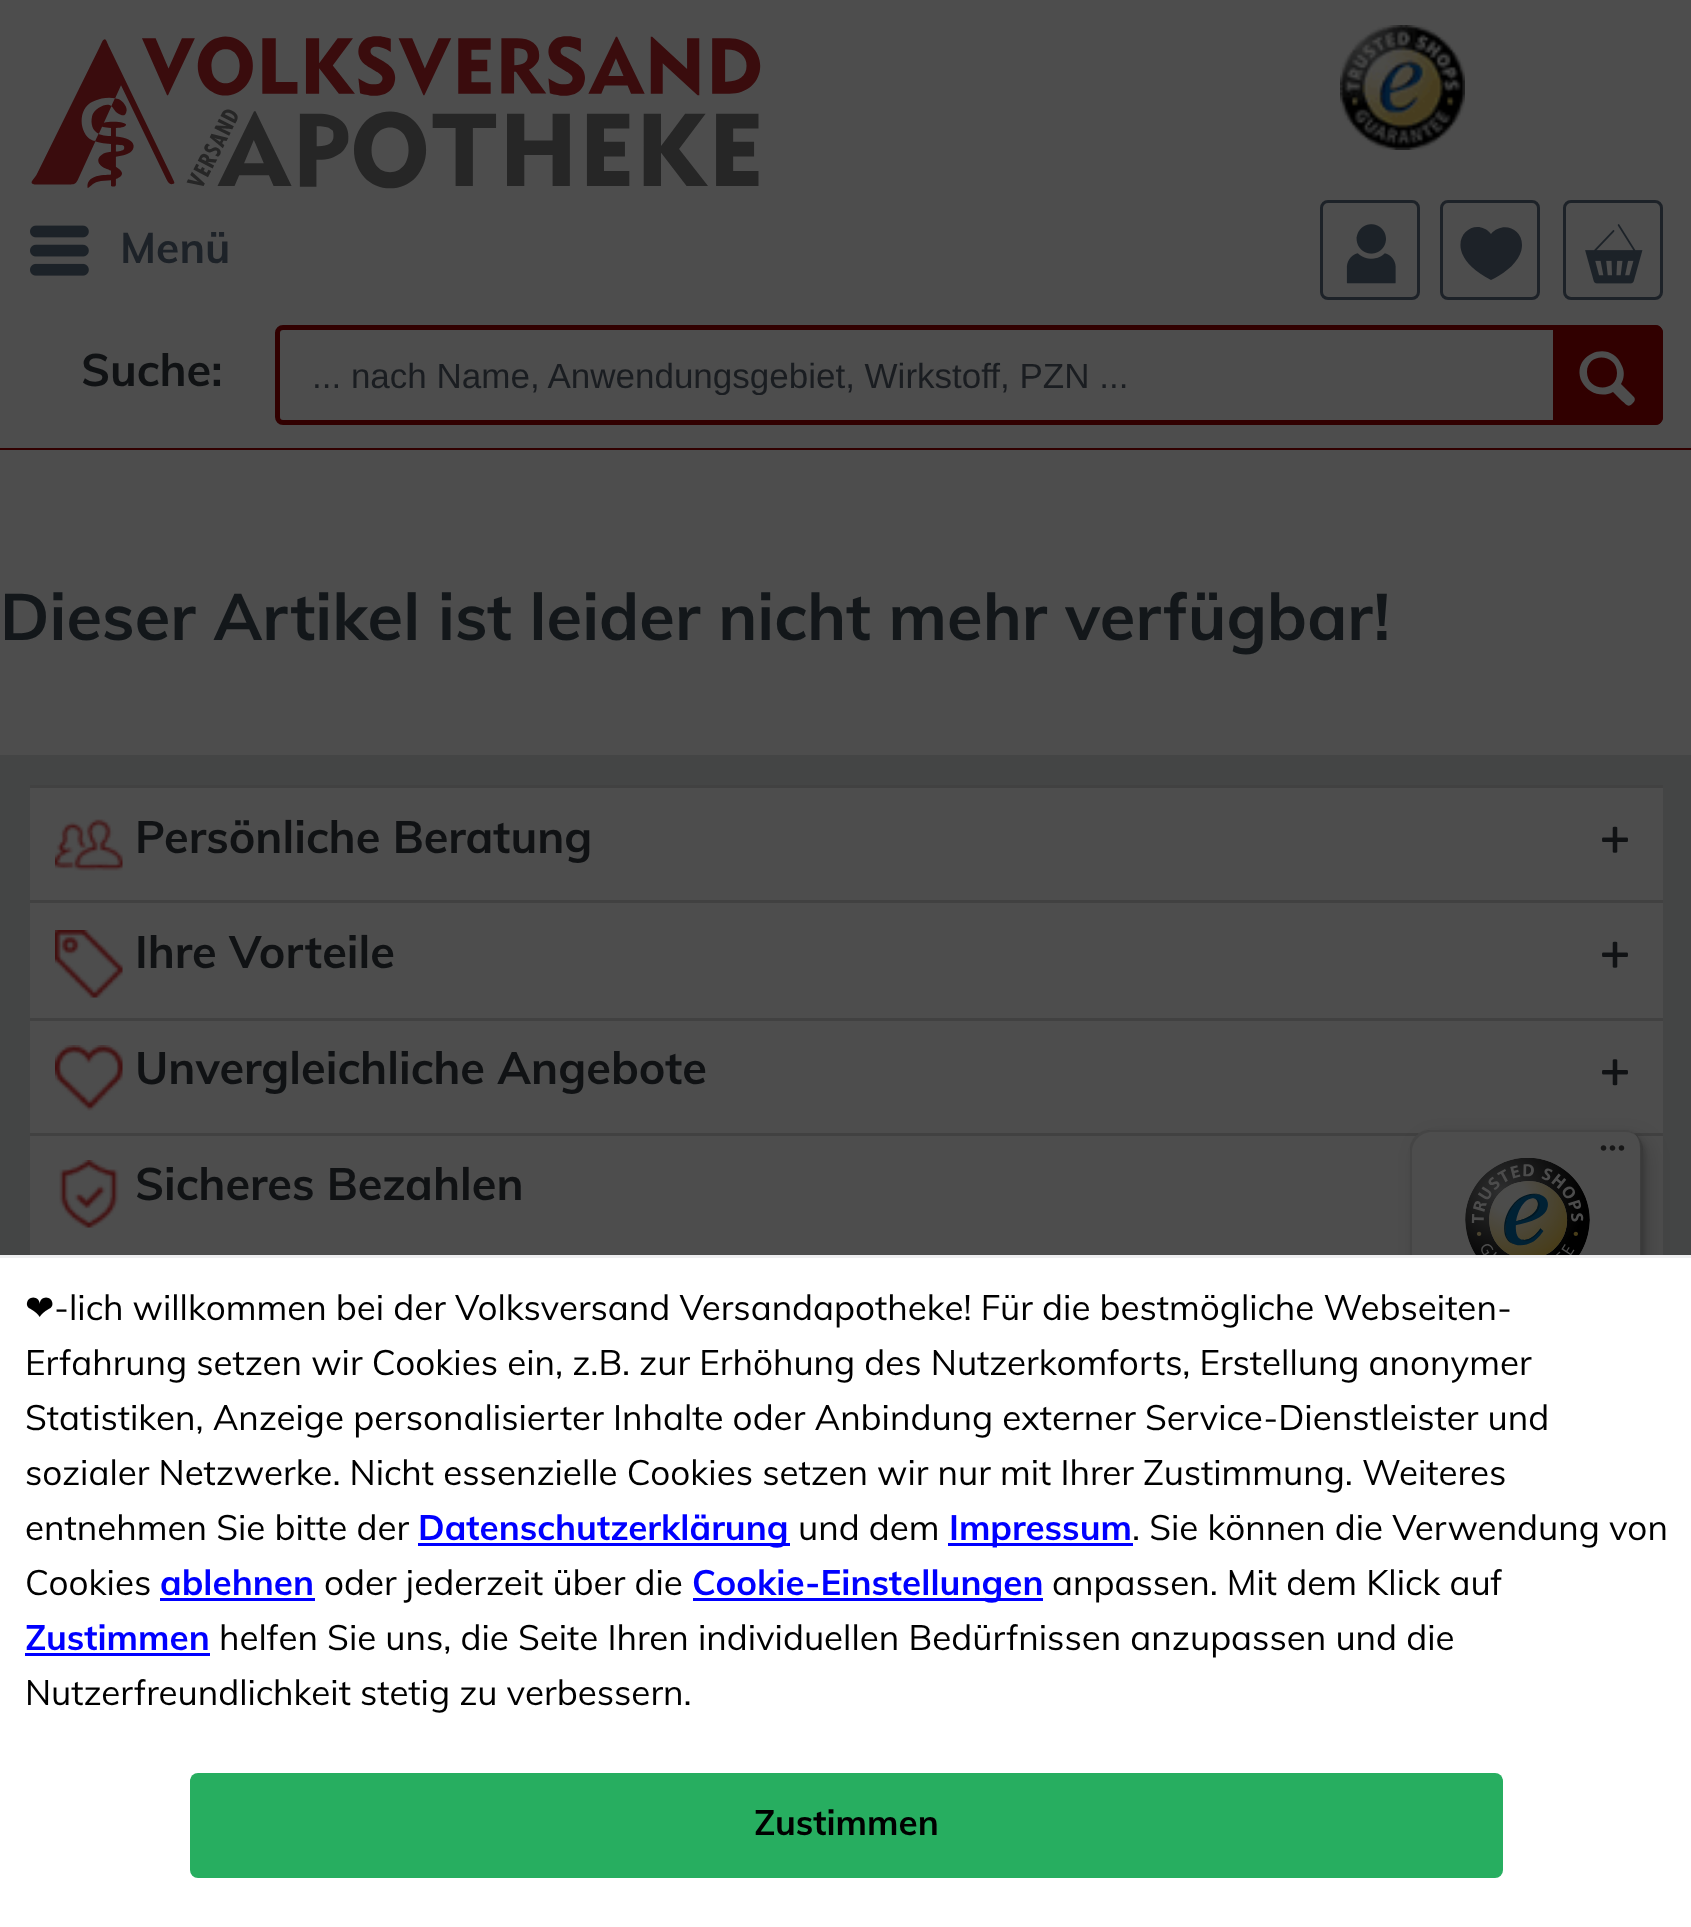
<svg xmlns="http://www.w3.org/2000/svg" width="1691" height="1927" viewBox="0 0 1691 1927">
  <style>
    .t1 { font: bold 42.5px Muli; fill: #1d2228; }
    .t2 { font: bold 45px Muli; fill: #101214; }
    .t3 { font: 35px Liberation Sans; fill: #1a1d21; }
    .t4 { font: bold 65px Muli; fill: #13171a; }
    .t5 { font: 35px DejaVu Sans; fill: #000; }
    .t6 { font: 35px Muli; fill: #000; }
    .t7 { font: bold 35px Muli; fill: #00f; }
    .t8 { font: bold 35px Muli; fill: #000; }
  </style>
  <defs>
    <clipPath id="clip1"><rect x="303" y="355" width="1250" height="40"/></clipPath>
  </defs>
  <rect width="100%" height="100%" fill="#444545"/>
  <rect x="0" y="0" width="1691" height="448" fill="#4d4d4d"/>
  <rect x="0" y="448" width="1691" height="2" fill="#310000"/>
  <image x="31" y="36" width="730" height="153" href="images/1.png"/>
  <image x="1340" y="25" width="125" height="125" href="images/2.png"/>
  <image x="30" y="225" width="59" height="51" href="images/3.png"/>
  <text x="120" y="263" class="t1">Menü</text>
  <rect x="1321.5" y="201.5" width="97" height="97" rx="6.5" fill="none" stroke="#1d2228" stroke-width="3"/>
  <image x="1346" y="224" width="50" height="60" href="images/4.png"/>
  <rect x="1441.5" y="201.5" width="97" height="97" rx="6.5" fill="none" stroke="#1d2228" stroke-width="3"/>
  <path d="M1522 245C1522 228 1502 221 1491 234C1472 211 1433 250 1491 280C1504 274 1522 261 1522 245" fill="#1d2228"/>
  <rect x="1564.5" y="201.5" width="97" height="97" rx="6.5" fill="none" stroke="#1d2228" stroke-width="3"/>
  <image x="1585" y="224" width="58" height="60" href="images/5.png"/>
  <text x="81" y="386" class="t2">Suche:</text>
  <rect x="277.5" y="327.5" width="1383" height="95" rx="5.5" fill="none" stroke="#310000" stroke-width="5"/>
  <g clip-path="url(#clip1)">
    <text x="312" y="388" class="t3">... nach Name, Anwendungsgebiet, Wirkstoff, PZN ...</text>
  </g>
  <path d="M1553 325H1655C1659.5 325 1663 328.5 1663 333V417C1663 421.5 1659.5 425 1655 425H1553Z" fill="#310000"/>
  <path d="M1634 397L1621 384C1624 379 1625 372 1622 366C1611 337 1569 355 1582 382C1588 393 1602 398 1613 392L1622 401C1626 404 1628 408 1632 404C1634 402 1636 400 1634 397ZM1587 372C1587 352 1617 353 1617 373C1617 393 1587 392 1587 372Z" fill="#4d4d4d"/>
  <rect x="0" y="450" width="1691" height="305" fill="#4d4d4d"/>
  <text x="0" y="640" class="t4">Dieser Artikel ist leider nicht mehr verfügbar!</text>
  <rect x="30" y="788" width="1633" height="112" fill="#4d4d4d"/>
  <rect x="30" y="785" width="1633" height="3" fill="#414141"/>
  <image x="55" y="819" width="68" height="52" href="images/6.png"/>
  <text x="135" y="853" class="t2">Persönliche Beratung</text>
  <image x="1602" y="826" width="26" height="27" href="images/7.png"/>
  <rect x="30" y="903" width="1633" height="115" fill="#4d4d4d"/>
  <rect x="30" y="900" width="1633" height="3" fill="#414141"/>
  <image x="55" y="930" width="68" height="68" href="images/8.png"/>
  <text x="135" y="968" class="t2">Ihre Vorteile</text>
  <image x="1602" y="941" width="26" height="27" href="images/7.png"/>
  <rect x="30" y="1021" width="1633" height="112" fill="#4d4d4d"/>
  <rect x="30" y="1018" width="1633" height="3" fill="#414141"/>
  <image x="55" y="1045" width="68" height="66" href="images/9.png"/>
  <text x="135" y="1084" class="t2">Unvergleichliche Angebote</text>
  <image x="1602" y="1059" width="26" height="27" href="images/10.png"/>
  <rect x="30" y="1136" width="1633" height="119" fill="#4d4d4d"/>
  <rect x="30" y="1133" width="1633" height="3" fill="#414141"/>
  <image x="59" y="1160" width="60" height="68" href="images/11.png"/>
  <text x="135" y="1200" class="t2">Sicheres Bezahlen</text>
  <rect x="1418" y="1138" width="232" height="387" rx="20" fill="#00000026" filter="blur(10px)"/>
  <rect x="1413" y="1133" width="232" height="387" rx="20" fill="#00000026" filter="blur(2.5px)"/>
  <rect x="1410" y="1130" width="233" height="388" rx="20" fill="#4d4d4d"/>
  <path d="M1432 1132H1625C1630 1132 1635 1134 1638 1137C1635 1133 1629 1130 1623 1130H1430C1419 1130 1410 1139 1410 1150V1498C1410 1504 1413 1510 1417 1513C1414 1510 1412 1505 1412 1500V1152C1412 1141 1421 1132 1432 1132Z" fill="#0000001a"/>
  <path d="M1413 1509C1417 1514 1423 1518 1430 1518H1623C1634 1518 1643 1509 1643 1498V1150C1643 1143 1639 1137 1634 1133C1638 1137 1640 1142 1640 1148V1495C1640 1506 1631 1515 1620 1515H1428C1422 1515 1417 1513 1413 1509Z" fill="#00000033"/>
  <path d="M1415 1511C1418 1515 1424 1518 1430 1518H1623C1634 1518 1643 1509 1643 1498V1150C1643 1144 1640 1138 1636 1135C1639 1138 1641 1143 1641 1148V1496C1641 1507 1632 1516 1621 1516H1428C1423 1516 1418 1514 1415 1511Z" fill="#0f0f0f33"/>
  <path d="M1412 1506C1415 1513 1422 1518 1430 1518H1623C1634 1518 1643 1509 1643 1498V1150C1643 1142 1638 1135 1631 1132C1637 1135 1641 1142 1641 1149V1496C1641 1507 1632 1516 1621 1516H1429C1422 1516 1415 1512 1412 1506Z" fill="#4d4d4d4d"/>
  <image x="1465" y="1158" width="125" height="97" href="images/12.png"/>
  <image x="1600" y="1145" width="25" height="6" href="images/13.png"/>
  <rect x="0" y="1258" width="1691" height="669" fill="#fff"/>
  <rect x="0" y="1255" width="1691" height="3" fill="#efeff1"/>
  <text x="25" y="1320" class="t5">❤</text>
  <text x="54" y="1320" class="t6">-lich willkommen bei der Volksversand Versandapotheke! Für die bestmögliche Webseiten-</text>
  <text x="25" y="1375" class="t6">Erfahrung setzen wir Cookies ein, z.B. zur Erhöhung des Nutzerkomforts, Erstellung anonymer</text>
  <text x="25" y="1430" class="t6">Statistiken, Anzeige personalisierter Inhalte oder Anbindung externer Service-Dienstleister und</text>
  <text x="25" y="1485" class="t6">sozialer Netzwerke. Nicht essenzielle Cookies setzen wir nur mit Ihrer Zustimmung. Weiteres</text>
  <text x="25" y="1540" class="t6">entnehmen Sie bitte der</text>
  <rect x="418" y="1543" width="372" height="3" fill="#00f"/>
  <text x="418" y="1540" class="t7">Datenschutzerklärung</text>
  <text x="798" y="1540" class="t6">und dem</text>
  <rect x="948" y="1543" width="185" height="3" fill="#00f"/>
  <text x="949" y="1540" class="t7">Impressum</text>
  <text x="1132" y="1540" class="t6">. Sie können die Verwendung von</text>
  <text x="25" y="1595" class="t6">Cookies</text>
  <text x="160" y="1595" class="t7">ablehnen</text>
  <rect x="160" y="1598" width="155" height="3" fill="#00f"/>
  <text x="324" y="1595" class="t6">oder jederzeit über die</text>
  <rect x="693" y="1598" width="350" height="3" fill="#00f"/>
  <text x="692" y="1595" class="t7">Cookie-Einstellungen</text>
  <text x="1052" y="1595" class="t6">anpassen. Mit dem Klick auf</text>
  <text x="25" y="1650" class="t7">Zustimmen</text>
  <rect x="25" y="1653" width="185" height="3" fill="#00f"/>
  <text x="219" y="1650" class="t6">helfen Sie uns, die Seite Ihren individuellen Bedürfnissen anzupassen und die</text>
  <text x="25" y="1705" class="t6">Nutzerfreundlichkeit stetig zu verbessern.</text>
  <rect x="190" y="1773" width="1313" height="105" rx="8" fill="#27ae60"/>
  <text x="754" y="1835" class="t8">Zustimmen</text>
</svg>
